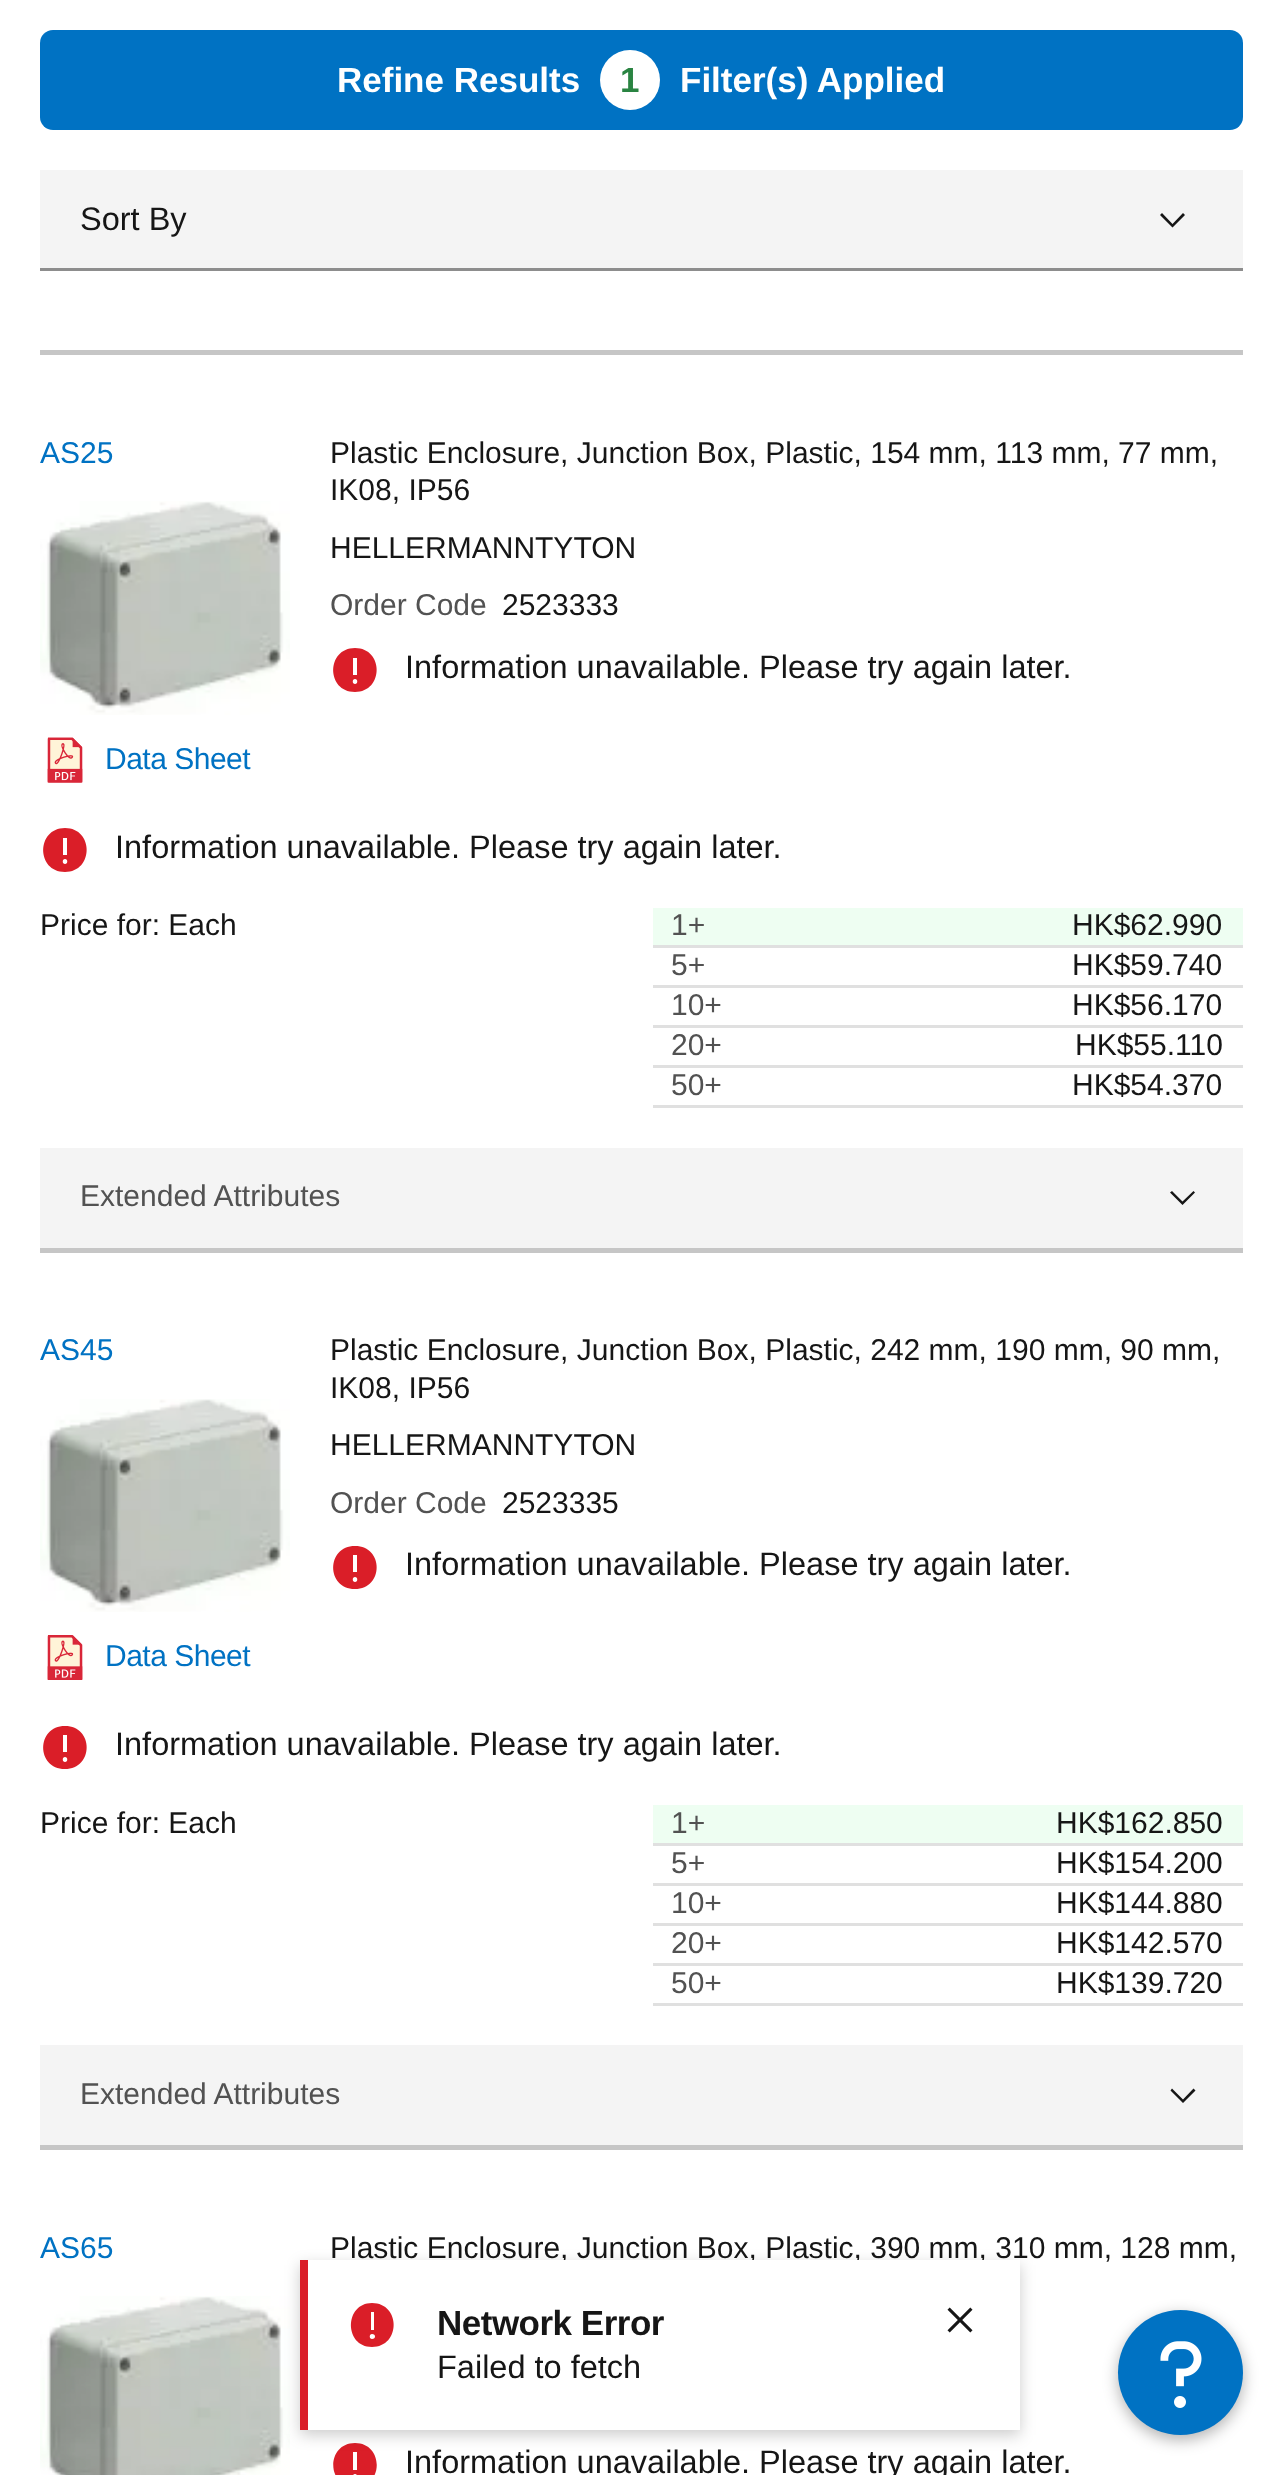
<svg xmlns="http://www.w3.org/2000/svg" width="1282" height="2475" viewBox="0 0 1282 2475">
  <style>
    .t1 { font: bold 35px Liberation Sans; fill: #fff; }
    .t2 { font: bold 35px Liberation Sans; fill: #2a8442; }
    .t3 { font: 32.5px Liberation Sans; fill: #161616; }
    .t4 { font: 30px Liberation Sans; fill: #0072c3; }
    .t5 { font: 30px Liberation Sans; letter-spacing: -0.5px; fill: #0072c3; }
    .t6 { font: 30px Liberation Sans; fill: #161616; }
    .t7 { font: 30px Liberation Sans; fill: #525252; }
    .t8 { font: bold 35px Liberation Sans; letter-spacing: -0.5px; fill: #161616; }
  </style>
  <rect width="100%" height="100%" fill="#fff"/>
  <rect x="40" y="30" width="1203" height="100" rx="13" fill="#0072c3"/>
  <text x="337" y="92" class="t1">Refine Results</text>
  <circle cx="630" cy="80" r="30" fill="#fff"/>
  <text x="620" y="92" class="t2">1</text>
  <text x="680" y="92" class="t1">Filter(s) Applied</text>
  <rect x="40" y="170" width="1203" height="98" fill="#f4f4f4"/>
  <rect x="40" y="268" width="1203" height="3" fill="#8d8d8d"/>
  <text x="80" y="230" class="t3">Sort By</text>
  <path d="M1172.5 227.5L1160 215L1162 213L1172.5 224L1183 213L1185 215Z" fill="#161616"/>
  <rect x="40" y="350" width="1203" height="5" fill="#c6c6c6"/>
  <text x="40" y="463" class="t4">AS25</text>
  <image x="40" y="501" width="250" height="214" href="images/1.png"/>
  <image x="47" y="737" width="36" height="46" href="images/2.png"/>
  <text x="105" y="769" class="t5">Data Sheet</text>
  <text x="330" y="463" class="t6">Plastic Enclosure, Junction Box, Plastic, 154 mm, 113 mm, 77 mm,</text>
  <text x="330" y="500" class="t6">IK08, IP56</text>
  <text x="330" y="558" class="t6">HELLERMANNTYTON</text>
  <text x="330" y="615" class="t7">Order Code</text>
  <text x="502" y="615" class="t6">2523333</text>
  <path d="M355 648C326 648 326 692 355 692C384 692 384 648 355 648ZM353 658H357V675H353ZM355 684C352 684 352 679 355 679C358 679 358 684 355 684Z" fill="#da1e28"/>
  <text x="405" y="678" class="t3">Information unavailable. Please try again later.</text>
  <path d="M65 828C36 828 36 872 65 872C94 872 94 828 65 828ZM63 838H67V855H63ZM65 864C62 864 62 859 65 859C68 859 68 864 65 864Z" fill="#da1e28"/>
  <text x="115" y="858" class="t3">Information unavailable. Please try again later.</text>
  <text x="40" y="935" class="t6">Price for: Each</text>
  <rect x="653" y="908" width="590" height="37" fill="#eefef2"/>
  <rect x="653" y="945" width="590" height="3" fill="#e0e0e0"/>
  <text x="671" y="935" class="t7">1+</text>
  <text x="1072" y="935" class="t6">HK$62.990</text>
  <rect x="653" y="985" width="590" height="3" fill="#e0e0e0"/>
  <text x="671" y="975" class="t7">5+</text>
  <text x="1072" y="975" class="t6">HK$59.740</text>
  <rect x="653" y="1025" width="590" height="3" fill="#e0e0e0"/>
  <text x="671" y="1015" class="t7">10+</text>
  <text x="1072" y="1015" class="t6">HK$56.170</text>
  <rect x="653" y="1065" width="590" height="3" fill="#e0e0e0"/>
  <text x="671" y="1055" class="t7">20+</text>
  <text x="1075" y="1055" class="t6">HK$55.110</text>
  <rect x="653" y="1105" width="590" height="3" fill="#e0e0e0"/>
  <text x="671" y="1095" class="t7">50+</text>
  <text x="1072" y="1095" class="t6">HK$54.370</text>
  <rect x="40" y="1148" width="1203" height="100" fill="#f4f4f4"/>
  <text x="80" y="1206" class="t7">Extended Attributes</text>
  <path d="M1182.5 1205L1170 1192.5L1172 1191L1182.5 1201.5L1193.5 1191L1195 1192.5Z" fill="#161616"/>
  <rect x="40" y="1248" width="1203" height="5" fill="#c6c6c6"/>
  <text x="40" y="1360" class="t4">AS45</text>
  <image x="40" y="1399" width="250" height="213" href="images/3.png"/>
  <image x="47" y="1635" width="36" height="45" href="images/4.png"/>
  <text x="105" y="1666" class="t5">Data Sheet</text>
  <text x="330" y="1360" class="t6">Plastic Enclosure, Junction Box, Plastic, 242 mm, 190 mm, 90 mm,</text>
  <text x="330" y="1398" class="t6">IK08, IP56</text>
  <text x="330" y="1455" class="t6">HELLERMANNTYTON</text>
  <text x="330" y="1513" class="t7">Order Code</text>
  <text x="502" y="1513" class="t6">2523335</text>
  <path d="M355 1546C326 1546 326 1589 355 1589C384 1589 384 1546 355 1546ZM353 1555H357V1572H353ZM355 1582C352 1582 352 1577 355 1577C358 1577 358 1582 355 1582Z" fill="#da1e28"/>
  <text x="405" y="1575" class="t3">Information unavailable. Please try again later.</text>
  <path d="M65 1726C36 1726 36 1769 65 1769C94 1769 94 1726 65 1726ZM63 1735H67V1752H63ZM65 1762C62 1762 62 1757 65 1757C68 1757 68 1762 65 1762Z" fill="#da1e28"/>
  <text x="115" y="1755" class="t3">Information unavailable. Please try again later.</text>
  <text x="40" y="1833" class="t6">Price for: Each</text>
  <rect x="653" y="1805" width="590" height="38" fill="#eefef2"/>
  <rect x="653" y="1843" width="590" height="3" fill="#e0e0e0"/>
  <text x="671" y="1833" class="t7">1+</text>
  <text x="1056" y="1833" class="t6">HK$162.850</text>
  <rect x="653" y="1883" width="590" height="3" fill="#e0e0e0"/>
  <text x="671" y="1873" class="t7">5+</text>
  <text x="1056" y="1873" class="t6">HK$154.200</text>
  <rect x="653" y="1923" width="590" height="3" fill="#e0e0e0"/>
  <text x="671" y="1913" class="t7">10+</text>
  <text x="1056" y="1913" class="t6">HK$144.880</text>
  <rect x="653" y="1963" width="590" height="3" fill="#e0e0e0"/>
  <text x="671" y="1953" class="t7">20+</text>
  <text x="1056" y="1953" class="t6">HK$142.570</text>
  <rect x="653" y="2003" width="590" height="3" fill="#e0e0e0"/>
  <text x="671" y="1993" class="t7">50+</text>
  <text x="1056" y="1993" class="t6">HK$139.720</text>
  <rect x="40" y="2045" width="1203" height="100" fill="#f4f4f4"/>
  <text x="80" y="2104" class="t7">Extended Attributes</text>
  <path d="M1183 2103L1170.5 2090.5L1172 2088.5L1183 2099.5L1193.5 2088.5L1195.5 2090.5Z" fill="#161616"/>
  <rect x="40" y="2145" width="1203" height="5" fill="#c6c6c6"/>
  <text x="40" y="2258" class="t4">AS65</text>
  <image x="40" y="2296" width="250" height="179" href="images/5.png"/>
  <text x="330" y="2258" class="t6">Plastic Enclosure, Junction Box, Plastic, 390 mm, 310 mm, 128 mm,</text>
  <path d="M355 2443C326 2443 326 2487 355 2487C384 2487 384 2443 355 2443ZM353 2452H357V2470H353ZM355 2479C352 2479 352 2474 355 2474C358 2474 358 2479 355 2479Z" fill="#da1e28"/>
  <text x="405" y="2473" class="t3">Information unavailable. Please try again later.</text>
  <rect x="300" y="2265" width="720" height="170" fill="#00000033" filter="blur(7.5px)"/>
  <rect x="308" y="2260" width="712" height="170" fill="#fff"/>
  <rect x="300" y="2260" width="8" height="170" fill="#da1e28"/>
  <path d="M372 2303C344 2303 344 2347 372 2347C401 2347 401 2303 372 2303ZM371 2312H374V2330H371ZM372 2339C369 2339 369 2334 372 2334C376 2334 376 2339 372 2339Z" fill="#da1e28"/>
  <text x="437" y="2335" class="t8">Network Error</text>
  <text x="437" y="2378" class="t3">Failed to fetch</text>
  <image x="947" y="2307" width="26" height="26" href="images/6.png"/>
  <rect x="1118" y="2315" width="125" height="125" rx="62.5" fill="#0000004d" filter="blur(7.5px)"/>
  <circle cx="1180.5" cy="2372.5" r="62.5" fill="#0072c3"/>
  <image x="1160" y="2341" width="42" height="67" href="images/7.png"/>
</svg>
